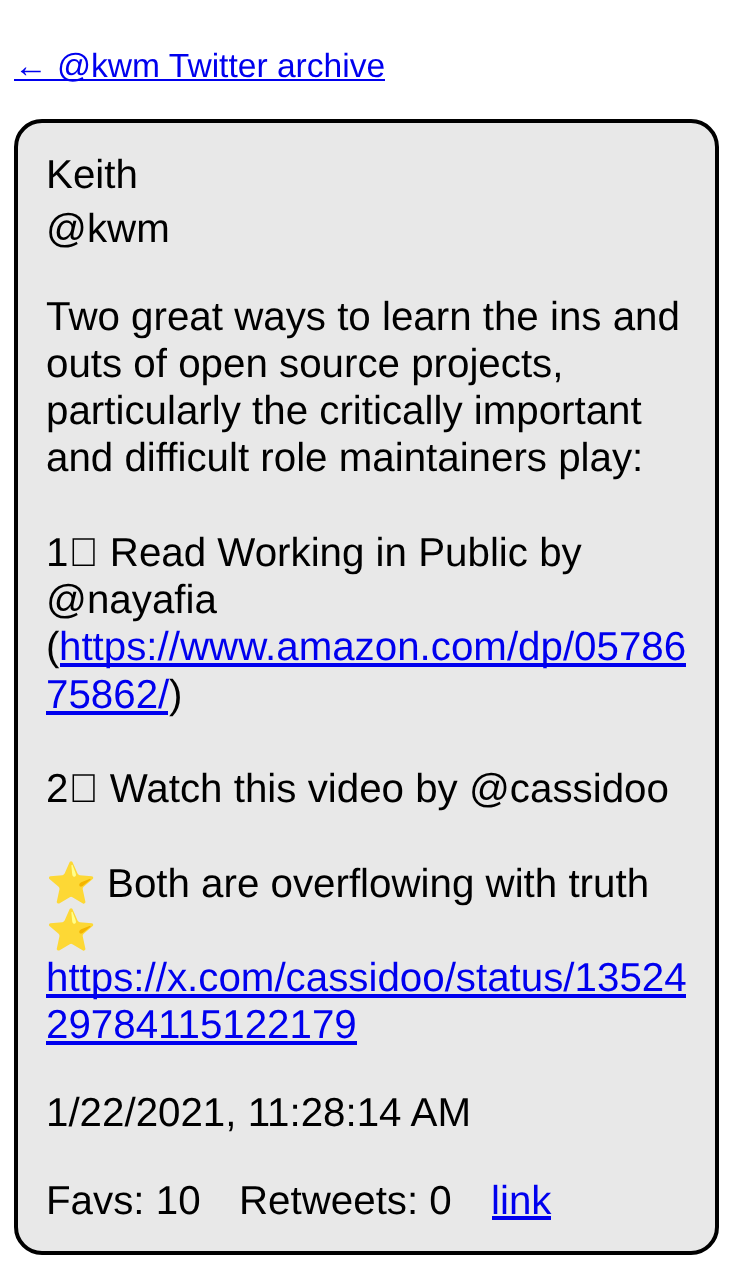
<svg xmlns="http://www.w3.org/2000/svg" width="732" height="1283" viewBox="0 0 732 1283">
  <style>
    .t1 { font: 33.6px Liberation Sans; fill: #00e; }
    .t2 { font: 40.3px Liberation Sans; fill: #000; }
    .t3 { font: 40.3px Liberation Sans; fill: #00e; }
    .t4 { font: 40.3px Noto Color Emoji; fill: #000; }
  </style>
  <rect width="100%" height="100%" fill="#fff"/>
  <rect x="14" y="79" width="371" height="2" fill="#00e"/>
  <text x="14" y="77" class="t1">← @kwm Twitter archive</text>
  <rect x="16" y="121" width="701" height="1132" rx="26" fill="#e8e8e8" stroke="#000" stroke-width="4"/>
  <text x="46" y="188" class="t2">Keith</text>
  <text x="46" y="242" class="t2">@kwm</text>
  <text x="46" y="330" class="t2">Two great ways to learn the ins and</text>
  <text x="46" y="377" class="t2">outs of open source projects,</text>
  <text x="46" y="424" class="t2">particularly the critically important</text>
  <text x="46" y="471" class="t2">and difficult role maintainers play:</text>
  <text x="46" y="566" class="t2">1⃣ Read Working in Public by</text>
  <text x="46" y="613" class="t2">@nayafia</text>
  <text x="46" y="660" class="t2">(</text>
  <rect x="60" y="663" width="626" height="4" fill="#00e"/>
  <text x="59" y="660" class="t3">https://www.amazon.com/dp/05786</text>
  <text x="46" y="708" class="t3">75862/</text>
  <rect x="46" y="711" width="122" height="4" fill="#00e"/>
  <text x="169" y="708" class="t2">)</text>
  <text x="46" y="802" class="t2">2⃣ Watch this video by @cassidoo</text>
  <text x="46" y="897" class="t4">⭐️</text>
  <text x="107" y="897" class="t2">Both are overflowing with truth</text>
  <text x="46" y="944" class="t4">⭐️</text>
  <rect x="46" y="994" width="640" height="4" fill="#00e"/>
  <text x="46" y="991" class="t3">https://x.com/cassidoo/status/13524</text>
  <text x="46" y="1038" class="t3">29784115122179</text>
  <rect x="46" y="1041" width="311" height="4" fill="#00e"/>
  <text x="46" y="1126" class="t2">1/22/2021, 11:28:14 AM</text>
  <text x="46" y="1214" class="t2">Favs: 10</text>
  <text x="239" y="1214" class="t2">Retweets: 0</text>
  <text x="491" y="1214" class="t3">link</text>
  <rect x="492" y="1216" width="59" height="4" fill="#00e"/>
</svg>
